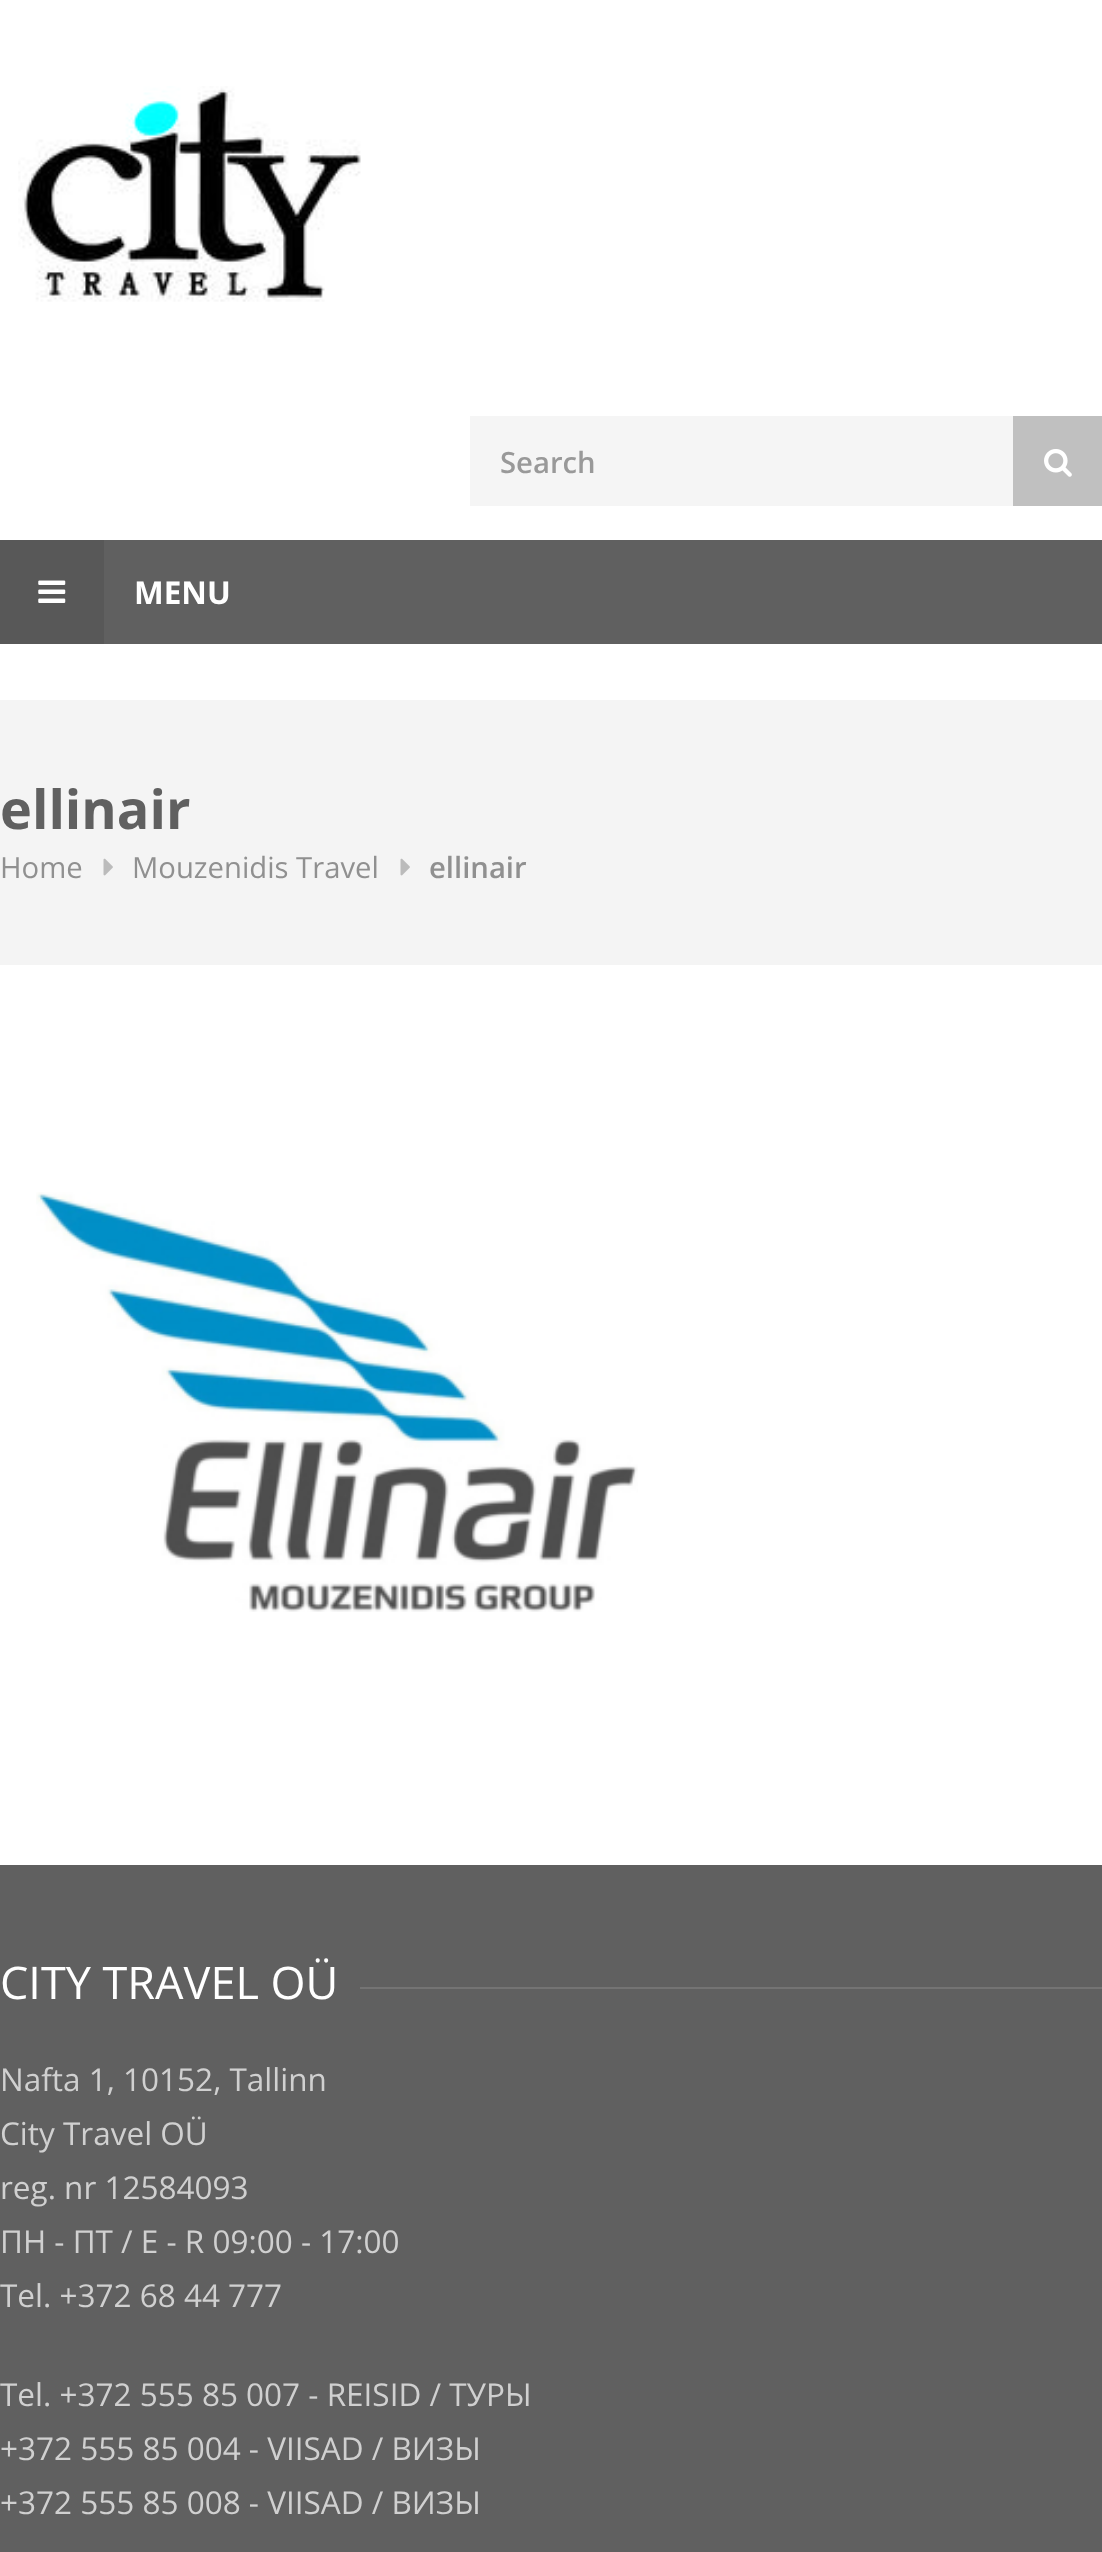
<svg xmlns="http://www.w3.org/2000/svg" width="1102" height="2552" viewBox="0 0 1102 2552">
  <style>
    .t1 { font: 600 29.25px Open Sans; fill: #999; }
    .t2 { font: bold 31.5px Open Sans; fill: #fff; }
    .t3 { font: bold 54px Open Sans; fill: #606060; }
    .t4 { font: 29.25px Open Sans; fill: #909090; }
    .t5 { font: 600 29.25px Open Sans; fill: #909090; }
    .t6 { font: 45px Open Sans; fill: #fff; }
    .t7 { font: 31.5px Open Sans; fill: #d0d0d0; }
  </style>
  <rect width="100%" height="100%" fill="#fff"/>
  <image x="18" y="86" width="343" height="216" href="images/1.png"/>
  <rect x="470" y="416" width="543" height="90" fill="#f5f5f5"/>
  <text x="500" y="473" class="t1">Search</text>
  <rect x="1013" y="416" width="89" height="90" fill="#c0c0c0"/>
  <image x="1044" y="449" width="28" height="28" href="images/2.png"/>
  <rect x="104" y="540" width="998" height="104" fill="#606060"/>
  <rect x="0" y="540" width="104" height="104" fill="#585858"/>
  <image x="38" y="580" width="28" height="23" href="images/3.png"/>
  <text x="134" y="604" class="t2">MENU</text>
  <rect x="0" y="700" width="1102" height="265" fill="#f4f4f4"/>
  <text x="0" y="829" class="t3">ellinair</text>
  <text x="0" y="878" class="t4">Home</text>
  <image x="103" y="858" width="10" height="18" href="images/4.png"/>
  <text x="132" y="878" class="t4">Mouzenidis Travel</text>
  <image x="400" y="858" width="10" height="18" href="images/4.png"/>
  <text x="429" y="878" class="t5">ellinair</text>
  <image x="36" y="1192" width="602" height="420" href="images/5.png"/>
  <rect x="0" y="1865" width="1102" height="687" fill="#606060"/>
  <text x="0" y="1999" class="t6">CITY TRAVEL OÜ</text>
  <rect x="360" y="1987" width="742" height="2" fill="#747474"/>
  <text x="0" y="2091" class="t7">Nafta 1, 10152, Tallinn</text>
  <text x="0" y="2145" class="t7">City Travel OÜ</text>
  <text x="0" y="2199" class="t7">reg. nr 12584093</text>
  <text x="0" y="2253" class="t7">ПН - ПТ / E - R 09:00 - 17:00</text>
  <text x="0" y="2307" class="t7">Tel. +372 68 44 777</text>
  <text x="0" y="2406" class="t7">Tel. +372 555 85 007 - REISID / ТУРЫ</text>
  <text x="0" y="2460" class="t7">+372 555 85 004 - VIISAD / ВИЗЫ</text>
  <text x="0" y="2514" class="t7">+372 555 85 008 - VIISAD / ВИЗЫ</text>
</svg>
